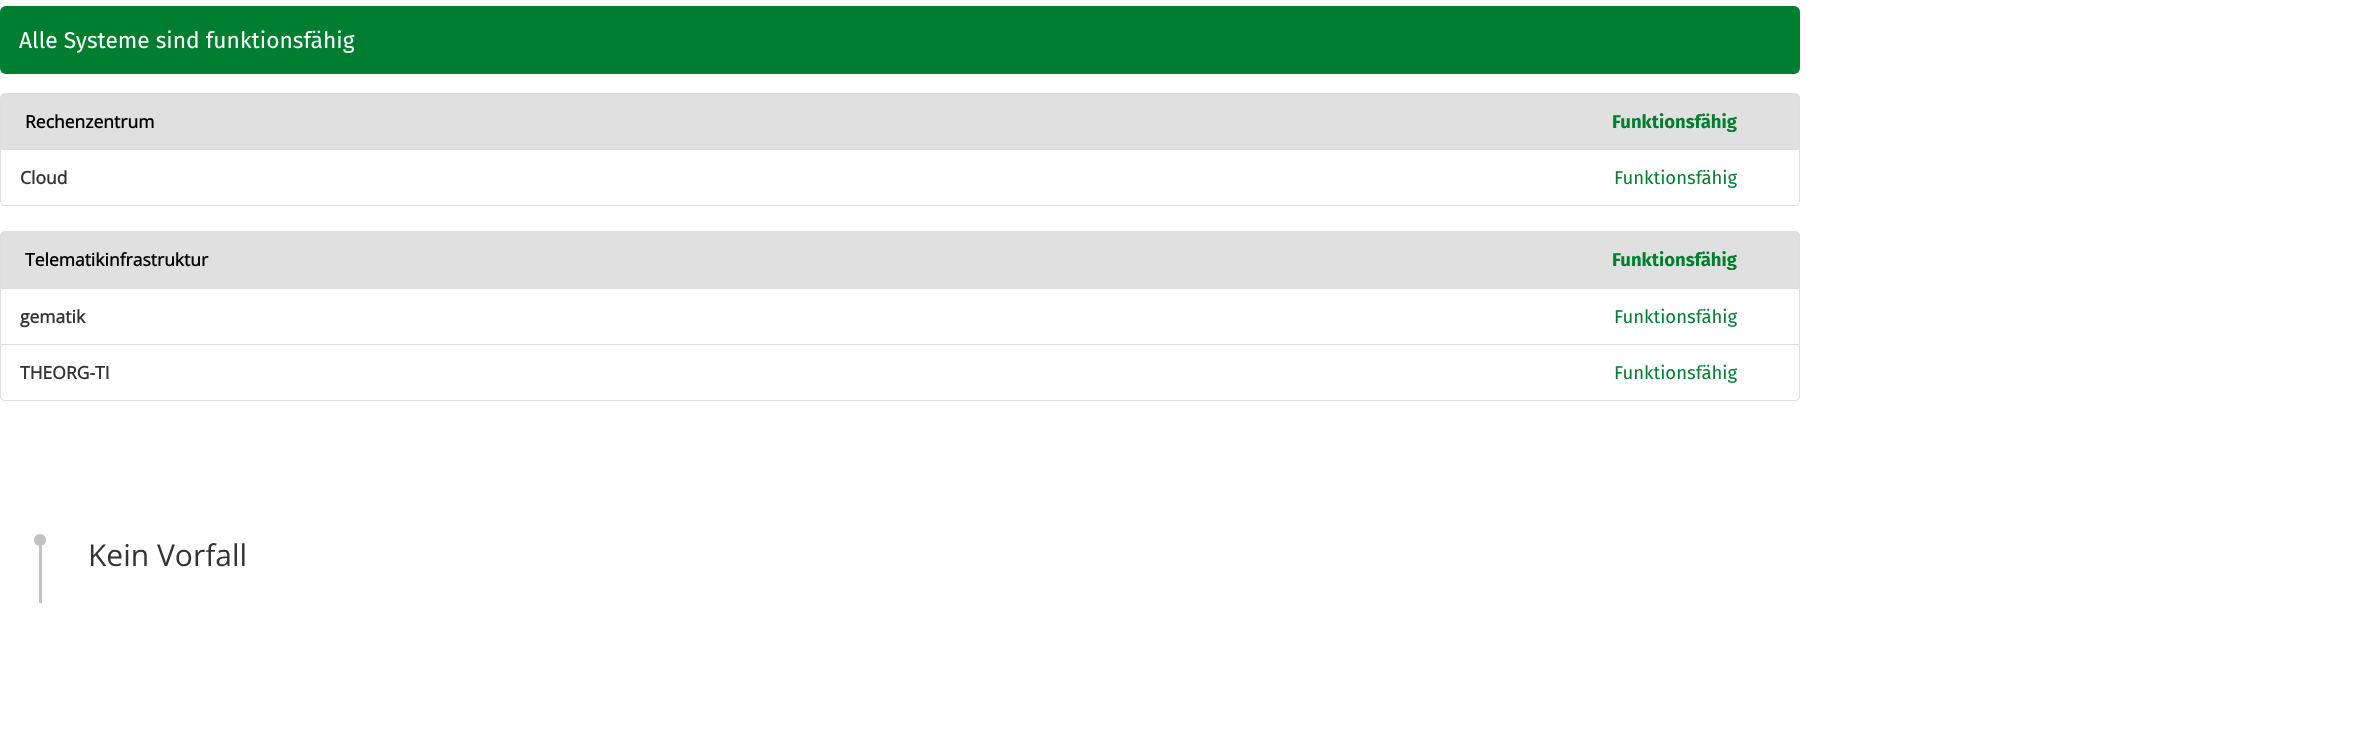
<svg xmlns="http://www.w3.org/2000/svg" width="2359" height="747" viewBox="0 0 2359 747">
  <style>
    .t1 { font: 22.75px Fira Sans; fill: #fff; }
    .t2 { font: bold 17.5px Open Sans; fill: #000; }
    .t3 { font: bold 18.5px Fira Sans; fill: #007e2f; }
    .t4 { font: bold 17.5px Open Sans; fill: #333; }
    .t5 { font: 18.5px Fira Sans; fill: #007e2f; }
    .t6 { font: 30px Open Sans; fill: #333; }
  </style>
  <rect width="100%" height="100%" fill="#fff"/>
  <rect x="0" y="6" width="1800" height="68" rx="6" fill="#007e2f"/>
  <text x="19" y="48" class="t1">Alle Systeme sind funktionsfähig</text>
  <path d="M5 93.5H1795C1797.5 93.5 1799.5 95.5 1799.5 98V149.5H.5V98C.5 95.5 2.5 93.5 5 93.5Z" fill="#e0e0e0" stroke="#ddd"/>
  <text x="25" y="128" class="t2">Rechenzentrum</text>
  <text x="1612" y="128" class="t3">Funktionsfähig</text>
  <path d="M.5 149.5H1799.5V201C1799.5 203.5 1797.5 205.5 1795 205.5H5C2.5 205.5 .5 203.5 .5 201Z" fill="#fff" stroke="#ddd"/>
  <text x="20" y="184" class="t4">Cloud</text>
  <text x="1614" y="184" class="t5">Funktionsfähig</text>
  <path d="M5 231.5H1795C1797.5 231.5 1799.5 233.5 1799.5 236V288.5H.5V236C.5 233.5 2.5 231.5 5 231.5Z" fill="#e0e0e0" stroke="#ddd"/>
  <text x="25" y="266" class="t2">Telematikinfrastruktur</text>
  <text x="1612" y="266" class="t3">Funktionsfähig</text>
  <rect x="0.5" y="288.5" width="1799" height="56" fill="none" stroke="#ddd"/>
  <text x="20" y="323" class="t4">gematik</text>
  <text x="1614" y="323" class="t5">Funktionsfähig</text>
  <path d="M.5 344.5H1799.5V396C1799.5 398.5 1797.5 400.5 1795 400.5H5C2.5 400.5 .5 398.5 .5 396Z" fill="#fff" stroke="#ddd"/>
  <text x="20" y="379" class="t4">THEORG-TI</text>
  <text x="1614" y="379" class="t5">Funktionsfähig</text>
  <rect x="39" y="539" width="3" height="64" fill="#c2c2c2"/>
  <circle cx="40" cy="540" r="6" fill="#c2c2c2"/>
  <text x="88" y="566" class="t6">Kein Vorfall</text>
</svg>
